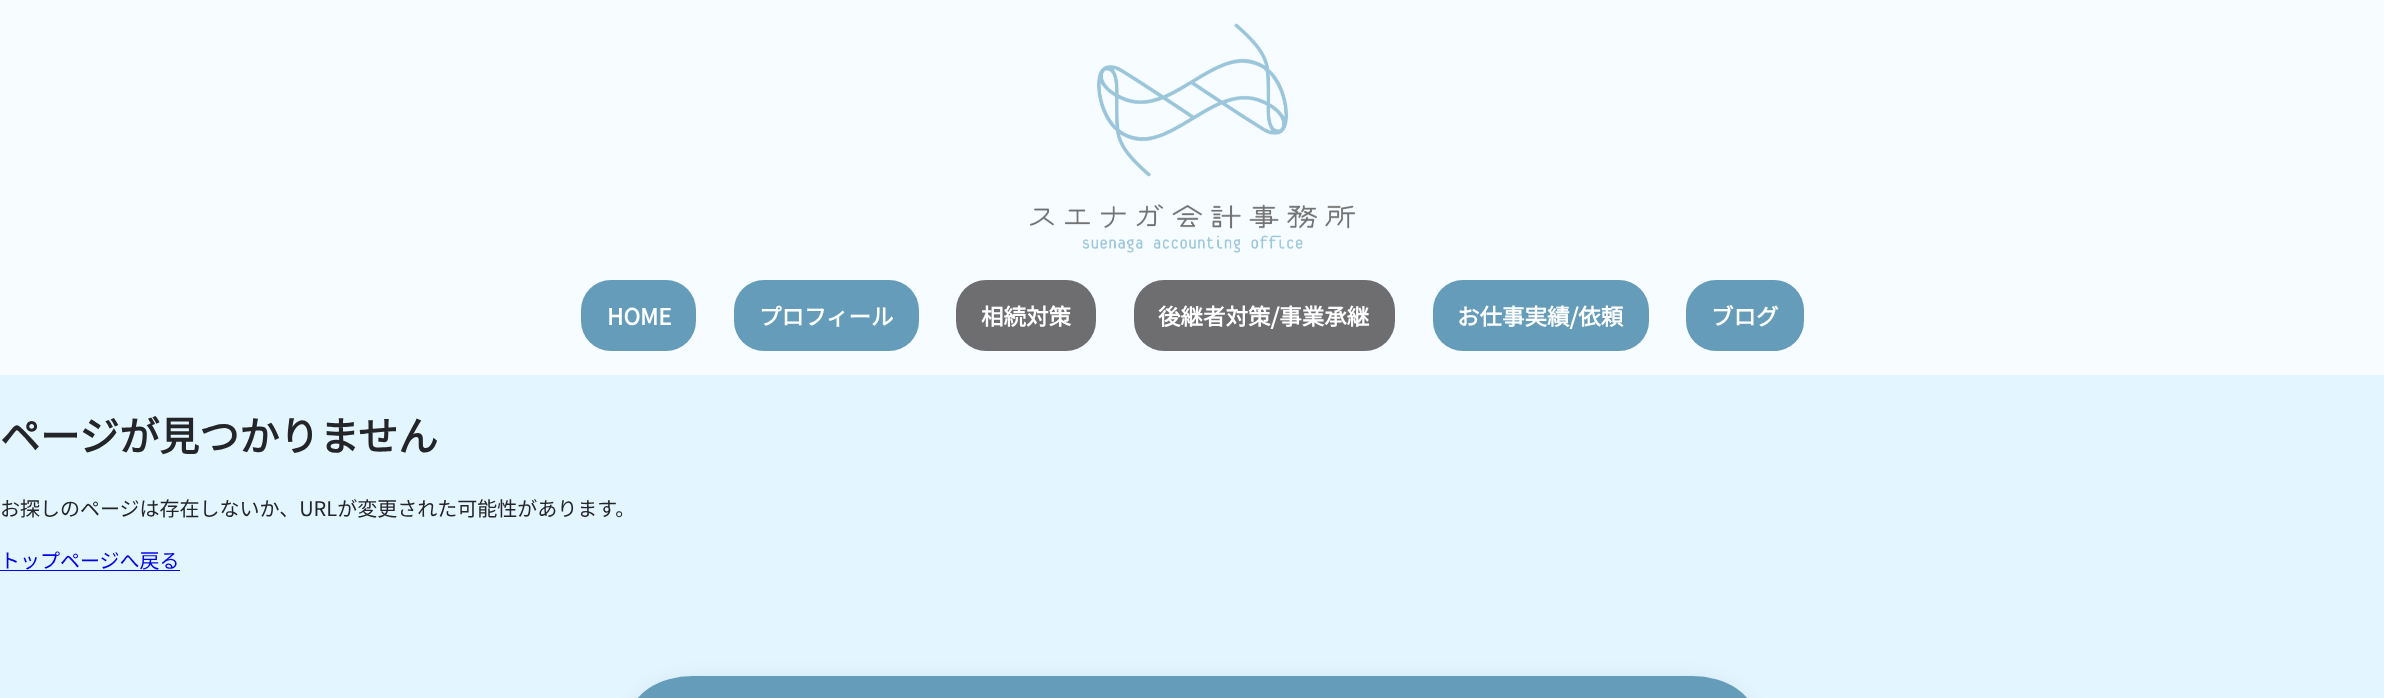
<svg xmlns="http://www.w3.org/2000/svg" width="2384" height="698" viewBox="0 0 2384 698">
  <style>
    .t1 { font: bold 22.5px Noto Sans JP; fill: #fff; }
    .t2 { font: bold 40px Noto Sans JP; fill: #242528; }
    .t3 { font: 100 20px Noto Sans JP; fill: #242528; }
    .t4 { font: 100 20px Noto Sans JP; fill: #00e; }
  </style>
  <rect width="100%" height="100%" fill="#e3f5ff"/>
  <rect x="0" y="0" width="2384" height="375" fill="#f6fcff"/>
  <image x="1030" y="23" width="325" height="230" href="images/1.png"/>
  <rect x="581" y="280" width="115" height="71" rx="30" fill="#649cb9"/>
  <text x="607" y="325" class="t1">HOME</text>
  <rect x="734" y="280" width="185" height="71" rx="30" fill="#649cb9"/>
  <text x="759" y="325" class="t1">プロフィール</text>
  <rect x="956" y="280" width="140" height="71" rx="30" fill="#6e6e71"/>
  <text x="981" y="325" class="t1">相続対策</text>
  <rect x="1134" y="280" width="261" height="71" rx="30" fill="#6e6e71"/>
  <text x="1158" y="325" class="t1">後継者対策/事業承継</text>
  <rect x="1433" y="280" width="216" height="71" rx="30" fill="#649cb9"/>
  <text x="1457" y="325" class="t1">お仕事実績/依頼</text>
  <rect x="1686" y="280" width="118" height="71" rx="30" fill="#649cb9"/>
  <text x="1711" y="325" class="t1">ブログ</text>
  <text x="0" y="451" class="t2">ページが見つかりません</text>
  <text x="0" y="516" class="t3">お探しのページは存在しないか、URLが変更された可能性があります。</text>
  <text x="0" y="568" class="t4">トップページへ戻る</text>
  <rect x="0" y="570" width="180" height="1" fill="#00e"/>
  <rect x="630" y="686" width="1125" height="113" rx="63" fill="#00000026" filter="blur(12.5px)"/>
  <rect x="630" y="676" width="1125" height="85" rx="63" fill="#649cb9"/>
</svg>
